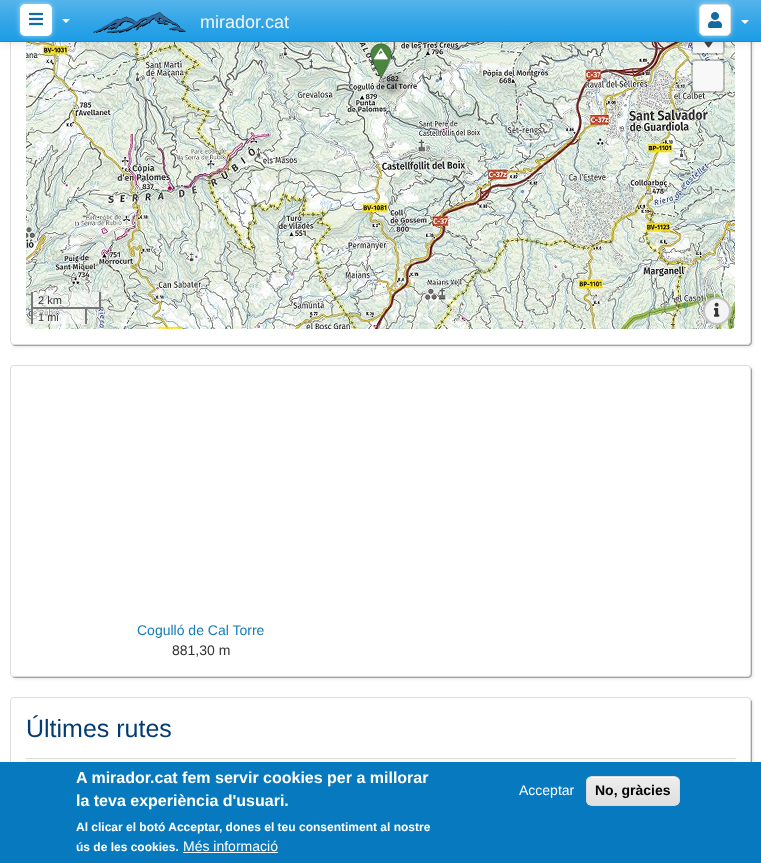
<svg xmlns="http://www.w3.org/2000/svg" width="761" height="863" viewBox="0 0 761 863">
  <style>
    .t1 { font: 18px Liberation Sans; fill: #f4f4f4; }
    .t2 { font: 11px Liberation Sans; fill: #333; }
    .t3 { font: 14px Liberation Sans; fill: #157cb6; }
    .t4 { font: 14px Liberation Sans; fill: #333; }
    .t5 { font: 25px Liberation Sans; fill: #033c73; }
    .t6 { font: bold 16px Liberation Sans; fill: #fff; }
    .t7 { font: bold 12px Liberation Sans; fill: #fff; }
    .t8 { font: 14px Liberation Sans; fill: #fff; }
    .t9 { font: bold 14px Liberation Sans; fill: #000; }
  </style>
  <defs>
    <linearGradient id="g1" gradientUnits="userSpaceOnUse" x1="381" y1="0" x2="381" y2="41"><stop offset="0" stop-color="#54b4eb"/><stop offset="0.6" stop-color="#2fa4e7"/><stop offset="1" stop-color="#1d9ce5"/></linearGradient>
    <clipPath id="clip1"><rect x="586" y="776" width="94" height="30" rx="6"/></clipPath>
    <linearGradient id="g2" gradientUnits="userSpaceOnUse" x1="633" y1="777" x2="633" y2="805"><stop offset="0.05" stop-color="#ededed"/><stop offset="1" stop-color="#dfdfdf"/></linearGradient>
  </defs>
  <rect width="100%" height="100%" fill="#fff"/>
  <rect x="12" y="-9" width="741" height="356" rx="4" fill="#0000001a" filter="blur(1.5px)"/>
  <path d="M12 344C12 345 14 346 15 346H748C750 346 752 344 752 342V-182C752-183 751-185 750-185L751-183V341C751 343 749 345 747 345H14Z" fill="#0000004d"/>
  <rect x="10.5" y="-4.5" width="740" height="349" rx="3.5" fill="#fff" stroke="#ddd"/>
  <image x="26" y="42" width="51" height="222" href="images/4.png"/>
  <image x="77" y="42" width="256" height="222" href="images/5.png"/>
  <image x="333" y="42" width="256" height="222" href="images/6.png"/>
  <image x="589" y="42" width="146" height="222" href="images/7.png"/>
  <rect x="385" y="76" width="16" height="16" fill="#00000066" filter="blur(5px)"/>
  <image x="370" y="43" width="22" height="36" href="images/12.png"/>
  <image x="374" y="48" width="14" height="12" href="images/13.png"/>
  <rect x="692" y="22" width="32" height="32" rx="3" fill="none" stroke="#00000033" stroke-width="2"/>
  <rect x="693" y="23" width="30" height="30" rx="2" fill="#f8f8f8"/>
  <image x="704" y="42" width="9" height="6" href="images/14.png"/>
  <rect x="0" y="1" width="761" height="42" fill="#0000001a" filter="blur(5px)"/>
  <rect x="0" y="0" width="761" height="41" fill="url(#g1)"/>
  <rect x="0" y="41" width="761" height="1" fill="#178acc"/>
  <rect x="19" y="3" width="32" height="32" rx="5" fill="#ffffff4d" filter="blur(2.5px)"/>
  <rect x="21" y="5" width="32" height="32" rx="5" fill="#ffffff4d" filter="blur(2.5px)"/>
  <rect x="20" y="4" width="32" height="32" rx="5" fill="#fff"/>
  <image x="29" y="12" width="14" height="14" href="images/1.png"/>
  <path d="M62 19H70L66 23Z" fill="#fff"/>
  <image x="93" y="11" width="93" height="23" href="images/2.png"/>
  <text x="200" y="28" class="t1">mirador.cat</text>
  <rect x="698" y="3" width="32" height="32" rx="5" fill="#ffffff4d" filter="blur(2.5px)"/>
  <rect x="700" y="5" width="32" height="32" rx="5" fill="#ffffff4d" filter="blur(2.5px)"/>
  <rect x="699.5" y="4.5" width="31" height="31" rx="4.5" fill="#fff" stroke="#ddd"/>
  <image x="708" y="12" width="14" height="16" href="images/3.png"/>
  <path d="M741 20H749L745 24Z" fill="#fff"/>
  <image x="26" y="264" width="51" height="65" href="images/8.png"/>
  <image x="77" y="264" width="256" height="65" href="images/9.png"/>
  <image x="333" y="264" width="256" height="65" href="images/10.png"/>
  <image x="589" y="264" width="146" height="65" href="images/11.png"/>
  <rect x="692" y="60" width="32" height="32" rx="3" fill="none" stroke="#00000033" stroke-width="2"/>
  <rect x="693" y="61" width="30" height="30" rx="4" fill="#f8f8f8"/>
  <rect x="33" y="292" width="66" height="15" fill="#ffffff80"/>
  <rect x="99" y="292" width="2" height="17" fill="#777"/>
  <rect x="87" y="307" width="14" height="2" fill="#777"/>
  <rect x="31" y="292" width="2" height="17" fill="#777"/>
  <text x="38" y="304" class="t2">2 km</text>
  <rect x="33" y="309" width="52" height="15" fill="#ffffff80"/>
  <rect x="31" y="307" width="56" height="2" fill="#777"/>
  <rect x="85" y="307" width="2" height="17" fill="#777"/>
  <rect x="31" y="307" width="2" height="17" fill="#777"/>
  <text x="38" y="321" class="t2">1 mi</text>
  <circle cx="717" cy="311" r="14" fill="#f4f4f4"/>
  <circle cx="717" cy="311" r="13" fill="none" stroke="#00000033" stroke-width="2"/>
  <image x="714" y="302" width="6" height="15" href="images/15.png"/>
  <rect x="12" y="367" width="741" height="312" rx="4" fill="#0000001a" filter="blur(1.5px)"/>
  <path d="M12 676C12 677 14 678 15 678H748C750 678 752 676 752 674V370C752 369 751 367 750 367L751 369V673C751 675 749 677 747 677H14Z" fill="#0000004d"/>
  <rect x="10.5" y="365.5" width="740" height="311" rx="3.5" fill="#fff" stroke="#ddd"/>
  <text x="137" y="635" class="t3">Cogulló de Cal Torre</text>
  <text x="172" y="655" class="t4">881,30 m</text>
  <rect x="12" y="699" width="741" height="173" rx="4" fill="#0000001a" filter="blur(1.5px)"/>
  <path d="M12 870C12 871 14 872 15 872H748C750 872 752 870 752 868V702C752 701 751 699 750 699L751 701V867C751 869 749 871 747 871H14Z" fill="#0000004d"/>
  <rect x="10.5" y="697.5" width="740" height="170" rx="3.5" fill="#fff" stroke="#ddd"/>
  <text x="26" y="737" class="t5">Últimes rutes</text>
  <rect x="26" y="759" width="709" height="3" fill="#f9f9f9"/>
  <rect x="26" y="758" width="710" height="1" fill="#ddd"/>
  <rect x="0" y="762" width="761" height="101" fill="#0779bf"/>
  <text x="76" y="783" class="t6">A mirador.cat fem servir cookies per a millorar</text>
  <text x="76" y="806" class="t6">la teva experiència d'usuari.</text>
  <text x="76" y="831" class="t7">Al clicar el botó Acceptar, dones el teu consentiment al nostre</text>
  <text x="76" y="851" class="t7">ús de les cookies.</text>
  <text x="183" y="851" class="t8">Més informació</text>
  <rect x="183" y="852" width="95" height="1" fill="#fff"/>
  <text x="519" y="795" class="t8">Acceptar</text>
  <g clip-path="url(#clip1)">
    <rect x="586" y="777" width="94" height="28" fill="url(#g2)"/>
  </g>
  <path d="M592 778H674C677 778 679 780 679 783C679 774 666 777 660 777H606C600 777 587 774 587 783C587 780 589 778 592 778Z" fill="#fff"/>
  <rect x="586.5" y="776.5" width="93" height="29" rx="5.5" fill="none" stroke="#dcdcdc"/>
  <text x="595" y="795" class="t9">No, gràcies</text>
</svg>
